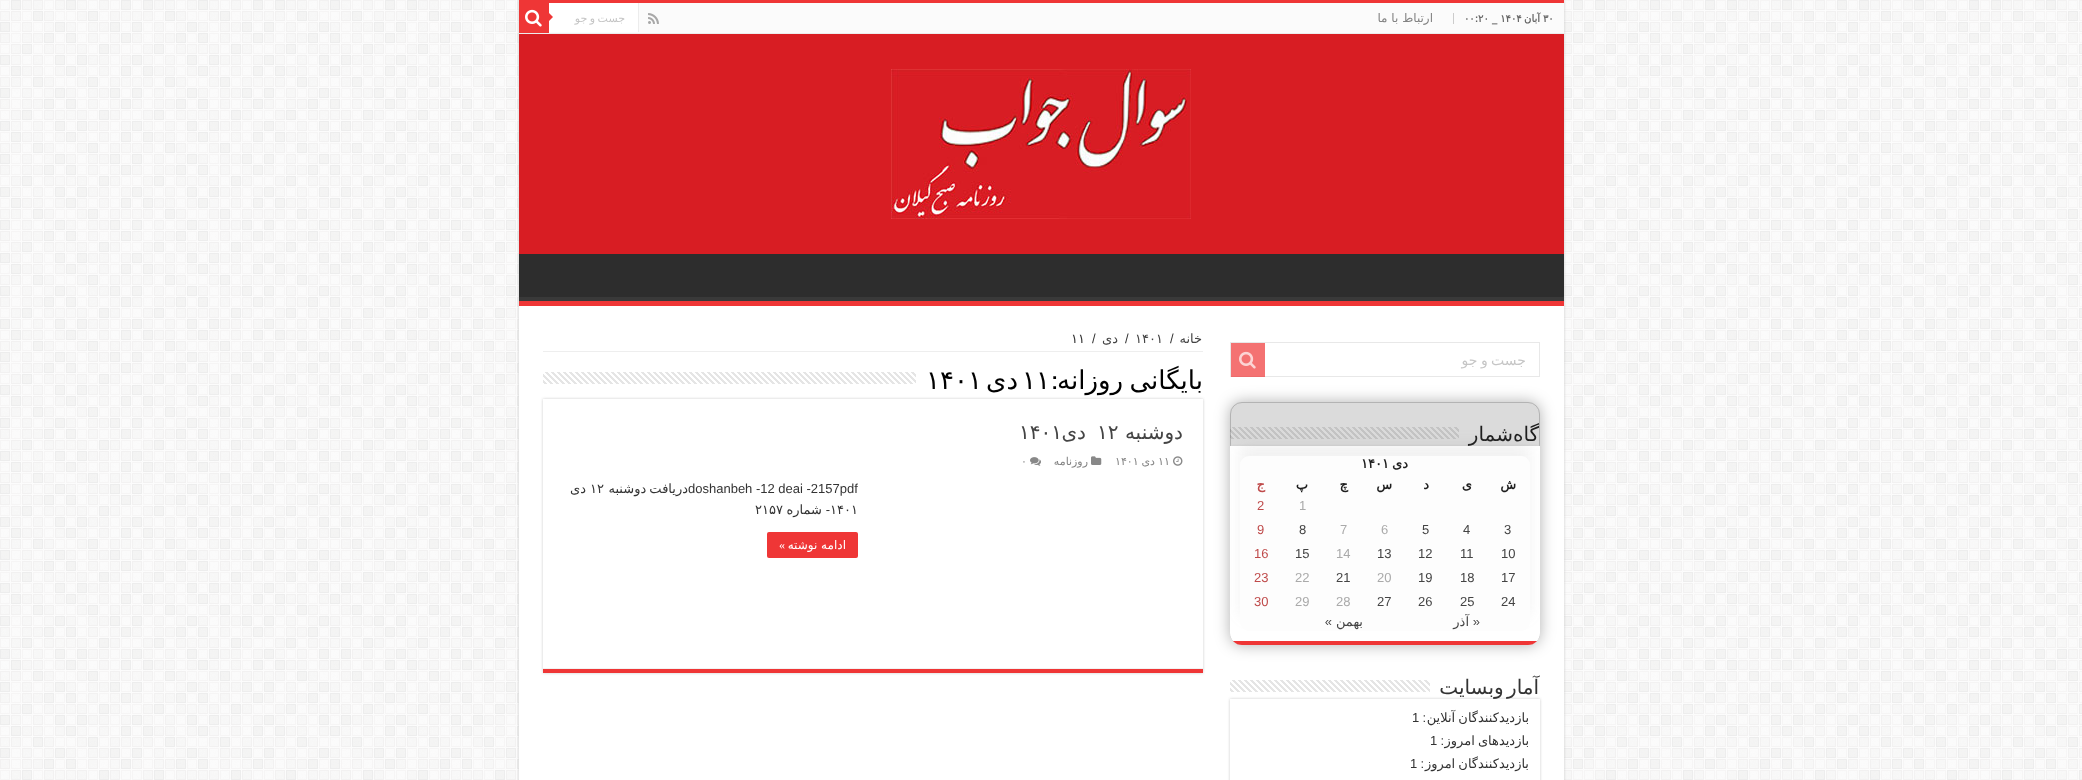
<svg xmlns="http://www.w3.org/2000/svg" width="2082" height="780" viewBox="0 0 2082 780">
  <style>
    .t1 { font: bold 10px DejaVu Sans; fill: #666; }
    .t2 { font: bold 10px DejaVu Sans; direction: rtl; fill: #666; }
    .t3 { font: 12px DejaVu Sans; direction: rtl; fill: #838383; }
    .t4 { font: 11px DejaVu Sans; direction: rtl; fill: #c5c5c5; }
    .t5 { font: 14px DejaVu Sans; direction: rtl; fill: #c5c5c5; }
    .t6 { font: 20px DejaVu Sans; direction: rtl; fill: #1e1e1e; }
    .t7 { font: bold 13px DejaVu Sans; direction: rtl; fill: #1e1e1e; }
    .t8 { font: bold 13px DejaVu Sans; fill: #1e1e1e; }
    .t9 { font: bold 13px DejaVu Sans; direction: rtl; fill: #bf4a4a; }
    .t10 { font: 13px Liberation Sans; fill: #aaa; }
    .t11 { font: 13px Liberation Sans; fill: #bf4a4a; }
    .t12 { font: 13px Liberation Sans; fill: #444; }
    .t13 { font: 13px Liberation Sans; direction: rtl; fill: #444; }
    .t14 { font: 13px DejaVu Sans; direction: rtl; fill: #444; }
    .t15 { font: 20px DejaVu Sans; direction: rtl; fill: #333; }
    .t16 { font: 13px DejaVu Sans; direction: rtl; fill: #333; }
    .t17 { font: 13px Liberation Sans; direction: rtl; fill: #333; }
    .t18 { font: 13px Liberation Sans; fill: #333; }
    .t19 { font: 13px DejaVu Sans; fill: #444; }
    .t20 { font: 13px DejaVu Sans; fill: #333; }
    .t21 { font: 26px DejaVu Sans; direction: rtl; fill: #000; }
    .t22 { font: bold 26px Bebas Neue; direction: rtl; fill: #000; }
    .t23 { font: 26px DejaVu Sans; fill: #000; }
    .t24 { font: 20px DejaVu Sans; direction: rtl; fill: #444; }
    .t25 { font: 20px DejaVu Sans; fill: #444; }
    .t26 { font: 11px DejaVu Sans; fill: #838383; }
    .t27 { font: 11px DejaVu Sans; direction: rtl; fill: #838383; }
    .t28 { font: 12px DejaVu Sans; direction: rtl; fill: #fff; }
    .t29 { font: 12px Liberation Serif; direction: rtl; fill: #fff; }
  </style>
  <defs>
    <clipPath id="clip1"><rect x="519" y="254" width="1045" height="47"/></clipPath>
    <clipPath id="clip2"><rect x="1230" y="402" width="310" height="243" rx="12"/></clipPath>
    <clipPath id="clip3"><rect x="1230" y="402" width="310" height="243" rx="12"/></clipPath>
    <clipPath id="clip4"><path d="M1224 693H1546V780H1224ZM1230 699H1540V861H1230Z" clip-rule="evenodd"/></clipPath>
    <clipPath id="clip5"><path d="M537 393H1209V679H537ZM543 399H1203V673H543Z" clip-rule="evenodd"/></clipPath>
  </defs>
  <rect width="100%" height="100%" fill="#fff"/>
  <image x="0" y="0" width="2082" height="780" href="images/1.png"/>
  <rect x="519" y="0" width="1045" height="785" fill="#cacaca" filter="blur(1.5px)"/>
  <rect x="519" y="306" width="1045" height="474" fill="#fff"/>
  <rect x="519" y="34" width="1045" height="220" fill="#d81d23"/>
  <rect x="519" y="0" width="1045" height="3" fill="#ef3636"/>
  <rect x="549" y="3" width="1015" height="30" fill="#fbfbfb"/>
  <rect x="519" y="33" width="1045" height="1" fill="#ececec"/>
  <rect x="1453" y="13" width="1" height="11" fill="#ccc"/>
  <text x="1543" y="22" class="t1">۳۰</text>
  <text x="1540" y="22" class="t2">آبان</text>
  <text x="1464" y="22" class="t1">۰۰:۲۰ _ ۱۴۰۴</text>
  <text x="1433" y="22" class="t3">ارتباط با ما</text>
  <image x="648" y="13" width="11" height="11" href="images/2.png"/>
  <rect x="549" y="3" width="89" height="29" fill="#fff"/>
  <rect x="638" y="3" width="1" height="29" fill="#ececec"/>
  <text x="625" y="22" word-spacing="-1" class="t4">جست و جو</text>
  <rect x="519" y="3" width="30" height="30" fill="#ef3636"/>
  <image x="525" y="9" width="17" height="18" href="images/3.png"/>
  <path d="M549 21V13L553 17Z" fill="#ef3636"/>
  <image x="891" y="69" width="300" height="150" href="images/4.png"/>
  <rect x="519" y="254" width="1045" height="43" fill="#2d2d2d"/>
  <g clip-path="url(#clip1)">
    <path d="M420 155H1663V400H420ZM518 248H1564V288C1564 289 1565 297 1563 297H518L517 296V248Z" fill="#393939" fill-rule="evenodd"/>
  </g>
  <rect x="519" y="301" width="1045" height="5" fill="#ef3636"/>
  <rect x="1230.5" y="342.5" width="309" height="34" fill="none" stroke="#e8e8e8"/>
  <text x="1526" y="365" word-spacing="-1" class="t5">جست و جو</text>
  <rect x="1231" y="343" width="34" height="34" fill="#ef3636b3"/>
  <image x="1239" y="351" width="17" height="18" href="images/5.png"/>
  <rect x="1230" y="402" width="310" height="243" rx="12" fill="#0000004f" filter="blur(7.5px)"/>
  <rect x="1230" y="402" width="310" height="243" rx="12" fill="#dbdbdb"/>
  <rect x="1230.5" y="402.5" width="309" height="242" rx="11.5" fill="none" stroke="#8080806e"/>
  <g clip-path="url(#clip2)">
    <rect x="1230" y="446" width="310" height="199" fill="#cacaca" filter="blur(1.5px)"/>
  </g>
  <text x="1539" y="441" class="t6">گاه‌شمار</text>
  <image x="1230" y="427" width="229" height="12" href="images/6.png"/>
  <path d="M1230 446H1540V633C1540 639.5 1534.5 645 1528 645H1242C1235.5 645 1230 639.5 1230 633Z" fill="#fff"/>
  <g clip-path="url(#clip3)">
    <rect x="1230" y="641" width="310" height="4" fill="#ef3636"/>
  </g>
  <rect x="1240" y="443" width="290" height="175" rx="9" fill="#8080801a" filter="blur(7px)"/>
  <rect x="1240" y="456" width="290" height="175" rx="9" fill="#fdfdfd"/>
  <text x="1408" y="468" class="t7">دی</text>
  <text x="1361" y="468" class="t8">۱۴۰۱</text>
  <text x="1516" y="489" class="t7">ش</text>
  <text x="1472" y="489" class="t7">ی</text>
  <text x="1429" y="489" class="t7">د</text>
  <text x="1392" y="489" class="t7">س</text>
  <text x="1348" y="489" class="t7">چ</text>
  <text x="1308" y="489" class="t7">پ</text>
  <text x="1265" y="489" class="t9">ج</text>
  <text x="1299" y="510" class="t10">1</text>
  <text x="1257" y="510" class="t11">2</text>
  <text x="1504" y="534" class="t12">3</text>
  <text x="1463" y="534" class="t12">4</text>
  <text x="1422" y="534" class="t12">5</text>
  <text x="1381" y="534" class="t10">6</text>
  <text x="1340" y="534" class="t10">7</text>
  <text x="1299" y="534" class="t12">8</text>
  <text x="1257" y="534" class="t11">9</text>
  <text x="1501" y="558" class="t12">10</text>
  <text x="1460" y="558" class="t12">11</text>
  <text x="1418" y="558" class="t12">12</text>
  <text x="1377" y="558" class="t12">13</text>
  <text x="1336" y="558" class="t10">14</text>
  <text x="1295" y="558" class="t12">15</text>
  <text x="1254" y="558" class="t11">16</text>
  <text x="1501" y="582" class="t12">17</text>
  <text x="1460" y="582" class="t12">18</text>
  <text x="1418" y="582" class="t12">19</text>
  <text x="1377" y="582" class="t10">20</text>
  <text x="1336" y="582" class="t12">21</text>
  <text x="1295" y="582" class="t10">22</text>
  <text x="1254" y="582" class="t11">23</text>
  <text x="1501" y="606" class="t12">24</text>
  <text x="1460" y="606" class="t12">25</text>
  <text x="1418" y="606" class="t12">26</text>
  <text x="1377" y="606" class="t12">27</text>
  <text x="1336" y="606" class="t10">28</text>
  <text x="1295" y="606" class="t10">29</text>
  <text x="1254" y="606" class="t11">30</text>
  <text x="1480" y="626" class="t13">«</text>
  <text x="1469" y="626" class="t14">آذر</text>
  <text x="1363" y="626" class="t14">بهمن</text>
  <text x="1332" y="626" class="t13">»</text>
  <g clip-path="url(#clip4)">
    <rect x="1230" y="699" width="310" height="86" fill="#cacaca" filter="blur(1.5px)"/>
  </g>
  <text x="1539" y="694" word-spacing="-3" class="t15">آمار وبسایت</text>
  <image x="1230" y="680" width="200" height="12" href="images/7.png"/>
  <text x="1529" y="722" word-spacing="-1" class="t16">بازدیدکنندگان آنلاین</text>
  <text x="1426" y="722" class="t17">:</text>
  <text x="1412" y="722" class="t18">1</text>
  <text x="1529" y="745" word-spacing="-1" class="t16">بازدیدهای امروز</text>
  <text x="1444" y="745" class="t17">:</text>
  <text x="1430" y="745" class="t18">1</text>
  <text x="1424" y="768" class="t17">:</text>
  <text x="1529" y="768" word-spacing="-1" class="t16">بازدیدکنندگان امروز</text>
  <text x="1410" y="768" class="t18">1</text>
  <rect x="543" y="351" width="660" height="1" fill="#eee"/>
  <text x="1202" y="343" class="t14">خانه</text>
  <text x="1170" y="343" class="t18">/</text>
  <text x="1135" y="343" class="t19">۱۴۰۱</text>
  <text x="1125" y="343" class="t18">/</text>
  <text x="1118" y="343" class="t14">دی</text>
  <text x="1092" y="343" class="t18">/</text>
  <text x="1071" y="343" class="t20">۱۱</text>
  <g clip-path="url(#clip5)">
    <rect x="543" y="399" width="660" height="274" fill="#cacaca" filter="blur(1.5px)"/>
  </g>
  <text x="1203" y="389" word-spacing="-2" class="t21">بایگانی روزانه</text>
  <text x="1057" y="389" class="t22">:</text>
  <text x="1022" y="389" class="t23">۱۱</text>
  <text x="1018" y="389" class="t21">دی</text>
  <text x="926" y="389" class="t23">۱۴۰۱</text>
  <image x="543" y="372" width="373" height="12" href="images/8.png"/>
  <rect x="543" y="669" width="660" height="4" fill="#ef3636"/>
  <rect x="543" y="668" width="660" height="1" fill="#f2f2f2"/>
  <text x="1183" y="439" class="t24">دوشنبه</text>
  <text x="1097" y="439" class="t25">۱۲</text>
  <text x="1086" y="439" class="t24">دی</text>
  <text x="1019" y="439" class="t25">۱۴۰۱</text>
  <image x="1173" y="456" width="10" height="10" href="images/9.png"/>
  <text x="1158" y="465" class="t26">۱۱</text>
  <text x="1155" y="465" class="t27">دی</text>
  <text x="1115" y="465" class="t26">۱۴۰۱</text>
  <image x="1091" y="456" width="11" height="9" href="images/10.png"/>
  <text x="1088" y="465" class="t27">روزنامه</text>
  <image x="1030" y="457" width="11" height="9" href="images/11.png"/>
  <text x="1021" y="465" class="t26">۰</text>
  <text x="688" y="493" class="t18">doshanbeh -12 deai -2157pdf</text>
  <text x="688" y="493" word-spacing="-1" class="t16">دریافت دوشنبه</text>
  <text x="590" y="493" class="t20">۱۲</text>
  <text x="586" y="493" class="t16">دی</text>
  <text x="830" y="514" class="t20">۱۴۰۱</text>
  <text x="830" y="514" class="t17">-</text>
  <text x="822" y="514" class="t16">شماره</text>
  <text x="755" y="514" class="t20">۲۱۵۷</text>
  <rect x="767" y="532" width="91" height="26" rx="2" fill="#ef3636"/>
  <text x="846" y="549" class="t28">ادامه نوشته</text>
  <text x="785" y="549" class="t29">»</text>
</svg>
